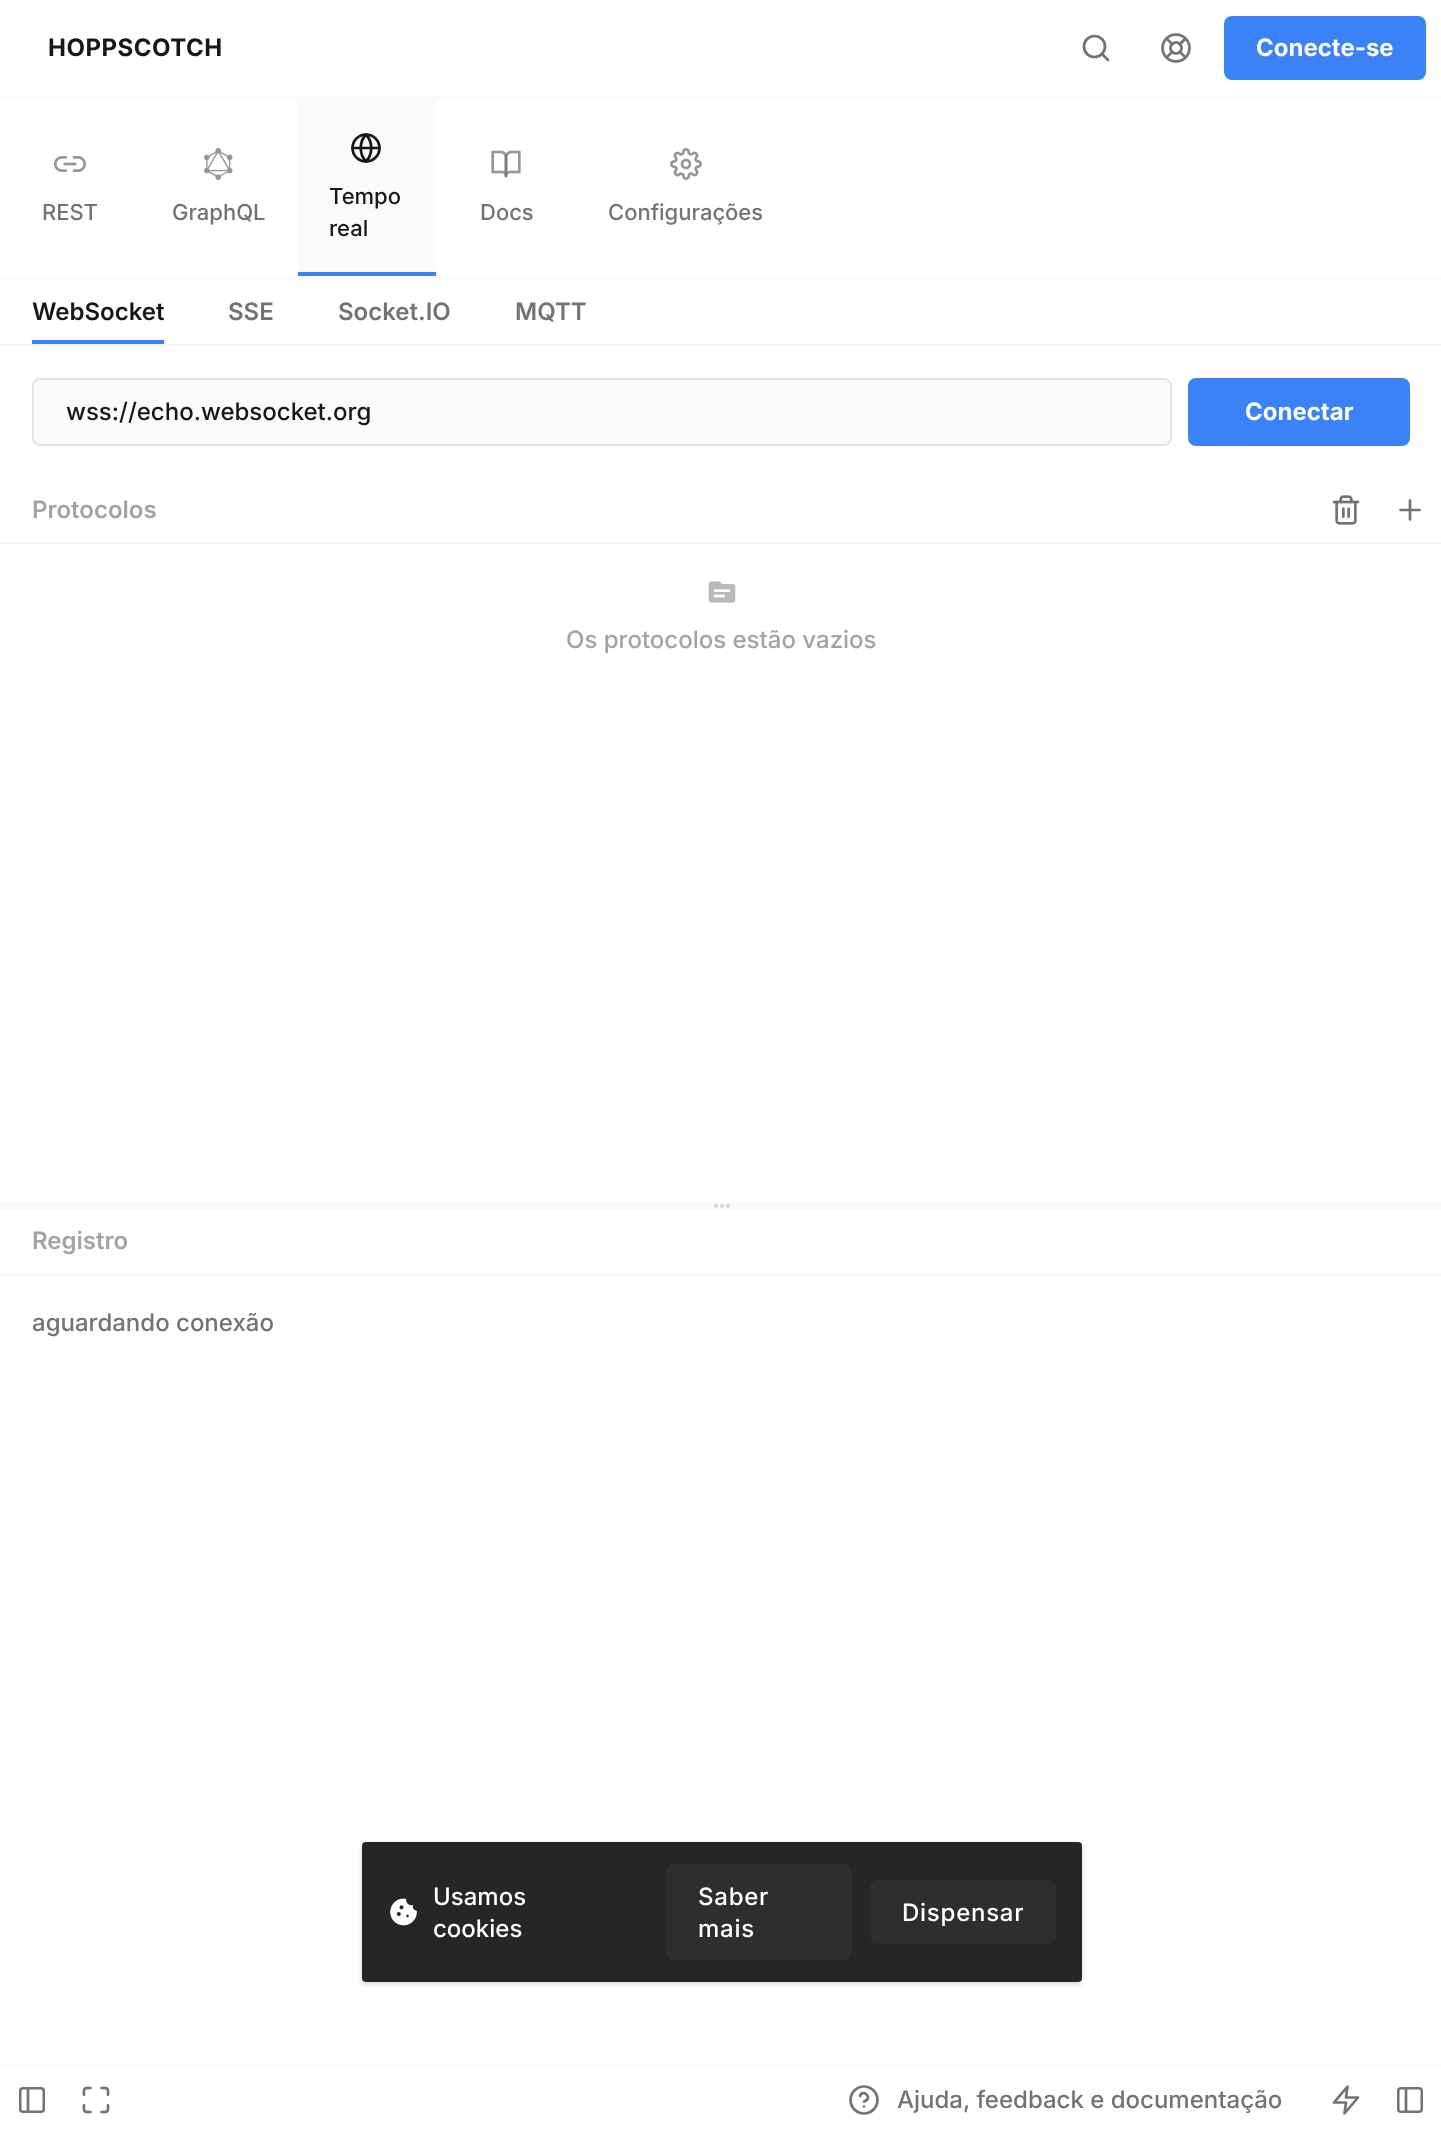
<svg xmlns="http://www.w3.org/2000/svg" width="1441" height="2132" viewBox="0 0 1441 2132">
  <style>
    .t1 { font: bold 24px Inter; letter-spacing: 0.5px; fill: #171717; }
    .t2 { font: bold 24px Inter; fill: #fff; }
    .t3 { font: 500 22px Inter; fill: #737373; }
    .t4 { font: 500 22px Inter; fill: #171717; }
    .t5 { font: 600 24px Inter; fill: #171717; }
    .t6 { font: 600 24px Inter; fill: #737373; }
    .t7 { font: 500 24px Inter; fill: #171717; }
    .t8 { font: 600 24px Inter; fill: #a3a3a3; }
    .t9 { font: 500 24px Inter; fill: #a3a3a3; }
    .t10 { font: 500 24px Inter; fill: #737373; }
    .t11 { font: 500 24px Inter; fill: #fff; }
    .t12 { font: 500 24px Inter; letter-spacing: 0.75px; fill: #fff; }
  </style>
  <rect width="100%" height="100%" fill="#fff"/>
  <text x="48" y="56" class="t1">HOPPSCOTCH</text>
  <circle cx="1094.5" cy="46.5" r="10.5" fill="none" stroke="#737373" stroke-width="2.7"/>
  <path d="M1108 60L1102 54" fill="none" stroke="#737373" stroke-width="2.7" stroke-linecap="round" stroke-linejoin="round"/>
  <image x="1161" y="33" width="30" height="30" href="images/1.png"/>
  <rect x="1224" y="16" width="202" height="64" rx="8" fill="#3b82f6"/>
  <text x="1256" y="56" class="t2">Conecte-se</text>
  <rect x="0" y="96" width="1441" height="4" fill="#fafafa"/>
  <image x="54" y="156" width="32" height="16" href="images/2.png"/>
  <text x="42" y="220" class="t3">REST</text>
  <image x="204" y="148" width="29" height="32" href="images/3.png"/>
  <text x="172" y="220" class="t3">GraphQL</text>
  <rect x="298" y="100" width="138" height="172" fill="#fafafa"/>
  <circle cx="366" cy="148" r="13.5" fill="none" stroke="#171717" stroke-width="2.7"/>
  <path d="M352.5 148H379.5M366 134.5C373 142 373 154 366 161.5C359 154 359 142 366 134.5Z" fill="none" stroke="#171717" stroke-width="2.7" stroke-linecap="round" stroke-linejoin="round"/>
  <text x="329" y="204" class="t4">Tempo</text>
  <text x="329" y="236" class="t4">real</text>
  <rect x="298" y="272" width="138" height="4" fill="#3b82f6"/>
  <image x="491" y="150" width="30" height="28" href="images/4.png"/>
  <text x="480" y="220" class="t3">Docs</text>
  <image x="670" y="148" width="32" height="32" href="images/5.png"/>
  <text x="608" y="220" class="t3">Configurações</text>
  <rect x="0" y="276" width="1441" height="4" fill="#fafafa"/>
  <rect x="0" y="344" width="1441" height="2" fill="#f5f5f5"/>
  <text x="32" y="320" class="t5">WebSocket</text>
  <rect x="32" y="340" width="132" height="4" fill="#3b82f6"/>
  <text x="228" y="320" class="t6">SSE</text>
  <text x="338" y="320" class="t6">Socket.IO</text>
  <text x="515" y="320" class="t6">MQTT</text>
  <rect x="33" y="379" width="1138" height="66" rx="7" fill="#fafafa" stroke="#e5e5e5" stroke-width="2"/>
  <text x="66" y="420" class="t7">wss://echo.websocket.org</text>
  <rect x="1188" y="378" width="222" height="68" rx="8" fill="#3b82f6"/>
  <text x="1245" y="420" class="t2">Conectar</text>
  <rect x="0" y="542" width="1441" height="2" fill="#f5f5f5"/>
  <text x="32" y="518" class="t8">Protocolos</text>
  <image x="1332" y="495" width="28" height="30" href="images/6.png"/>
  <path d="M1410 500.5V519.5M1400.5 510H1419.5" fill="none" stroke="#737373" stroke-width="2.7" stroke-linecap="round" stroke-linejoin="round"/>
  <image x="708" y="581" width="28" height="22" href="images/7.png"/>
  <text x="566" y="648" class="t9">Os protocolos estão vazios</text>
  <rect x="0" y="1202" width="1441" height="8" fill="#fafafa"/>
  <image x="714" y="1204" width="16" height="4" href="images/8.png"/>
  <rect x="0" y="1274" width="1441" height="2" fill="#f5f5f5"/>
  <text x="32" y="1249" class="t8">Registro</text>
  <text x="32" y="1331" class="t10">aguardando conexão</text>
  <rect x="0" y="2064" width="1441" height="4" fill="#fafafa"/>
  <rect x="20.25" y="2088.25" width="23.5" height="23.5" rx="2.75" fill="none" stroke="#737373" stroke-width="2.5"/>
  <path d="M28 2088V2112" fill="none" stroke="#737373" stroke-width="2.7" stroke-linecap="round" stroke-linejoin="round"/>
  <image x="82" y="2086" width="28" height="28" href="images/9.png"/>
  <circle cx="864" cy="2100" r="13.5" fill="none" stroke="#737373" stroke-width="2.7"/>
  <path d="M860 2096C862.5 2088.5 874 2098 864 2101.5M864 2106.5H864" fill="none" stroke="#737373" stroke-width="2.7" stroke-linecap="round" stroke-linejoin="round"/>
  <text x="897" y="2108" class="t10">Ajuda, feedback e documentação</text>
  <path d="M1347.5 2086.5L1334 2102.5H1346L1344.5 2113.5L1358 2097.5H1346Z" fill="none" stroke="#737373" stroke-width="2.7" stroke-linecap="round" stroke-linejoin="round"/>
  <rect x="1398.25" y="2088.25" width="23.5" height="23.5" rx="2.75" fill="none" stroke="#737373" stroke-width="2.5"/>
  <path d="M1406 2088V2112" fill="none" stroke="#737373" stroke-width="2.7" stroke-linecap="round" stroke-linejoin="round"/>
  <rect x="362" y="1844" width="720" height="140" rx="4" fill="#0000000f" filter="blur(2px)"/>
  <rect x="362" y="1844" width="720" height="140" rx="4" fill="#0000001a" filter="blur(3px)"/>
  <rect x="362" y="1842" width="720" height="140" rx="4" fill="#262626"/>
  <image x="390" y="1898" width="27" height="28" href="images/10.png"/>
  <text x="433" y="1905" class="t11">Usamos</text>
  <rect x="666" y="1864" width="186" height="96" rx="8" fill="#2d2e2f"/>
  <text x="698" y="1905" class="t12">Saber</text>
  <text x="698" y="1937" class="t12">mais</text>
  <rect x="870" y="1880" width="186" height="64" rx="8" fill="#2d2e2f"/>
  <text x="902" y="1921" class="t12">Dispensar</text>
  <text x="433" y="1937" class="t11">cookies</text>
</svg>
